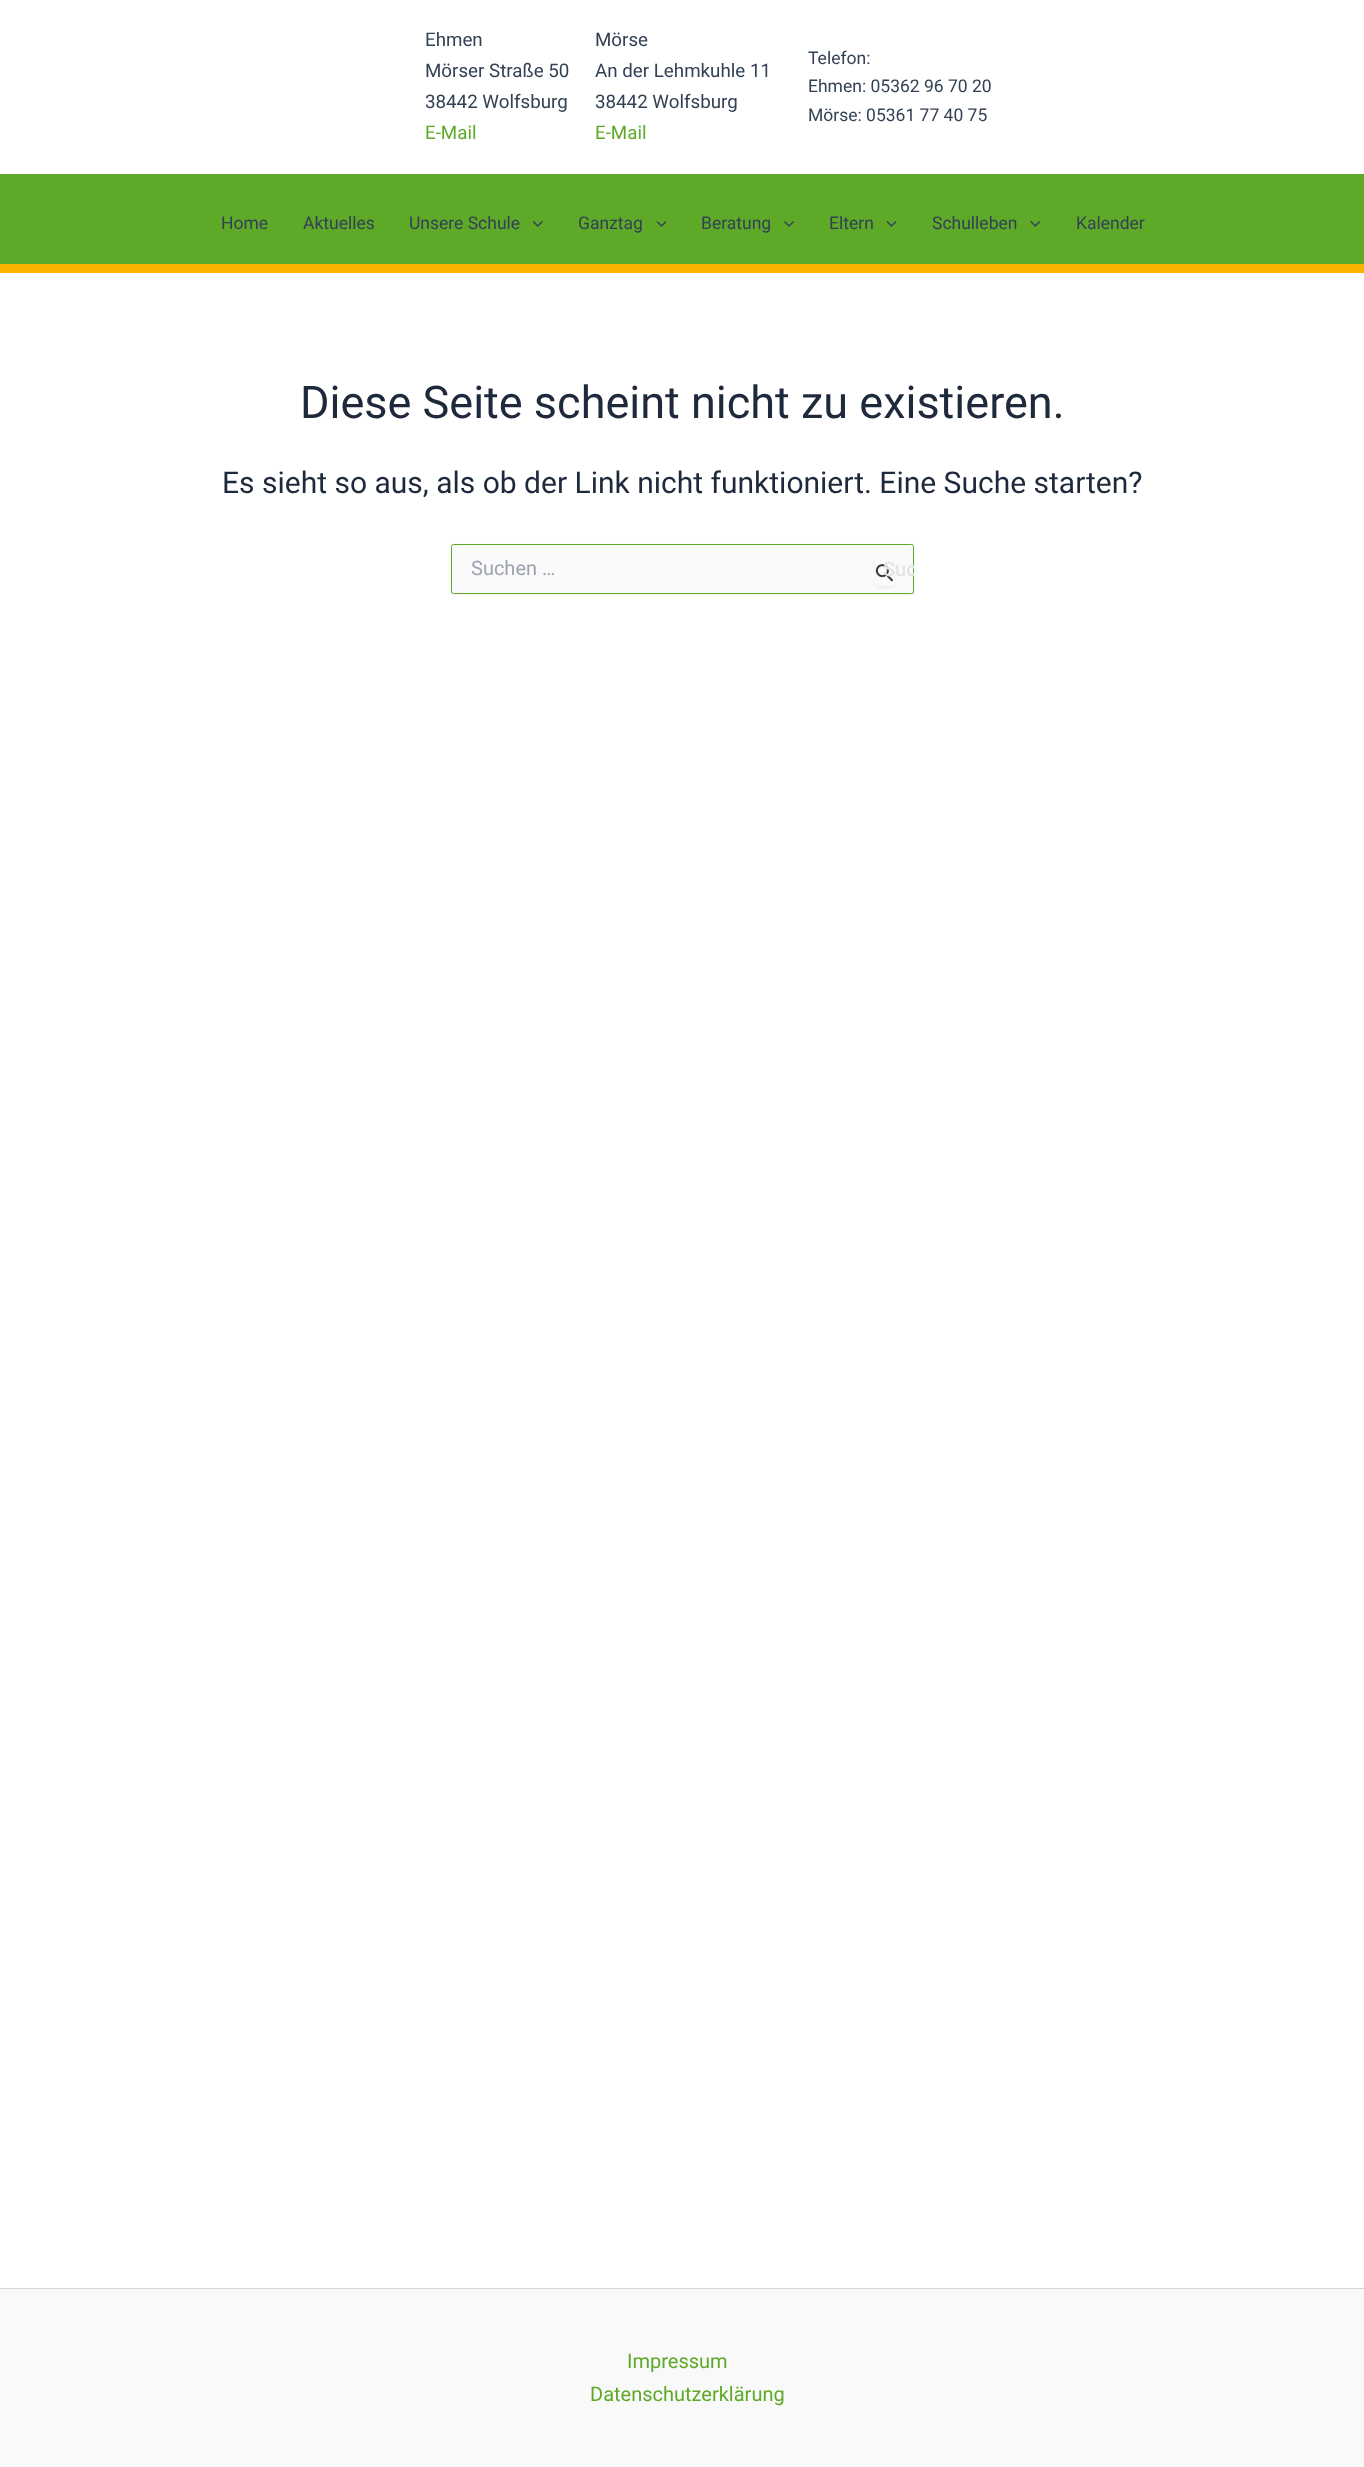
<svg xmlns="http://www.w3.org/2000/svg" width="1364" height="2467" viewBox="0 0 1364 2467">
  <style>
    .t1 { font: 18.75px Roboto; fill: #334155; }
    .t2 { font: 18.75px Roboto; fill: #5ea928; }
    .t3 { font: 17.5px Roboto; fill: #334155; }
    .t4 { font: 45px Roboto; fill: #1e293b; }
    .t5 { font: 30px Roboto; fill: #1e293b; }
    .t6 { font: 20px Roboto; fill: #9ca3af; }
    .t7 { font: 500 20px Roboto; fill: #e2e5e0; }
    .t8 { font: 20px Roboto; fill: #5ea928; }
  </style>
  <defs>
    <clipPath id="clip1"><path d="M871 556H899V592H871ZM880 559H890C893 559 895 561 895 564V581C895 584 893 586 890 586H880C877 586 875 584 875 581V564C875 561 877 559 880 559Z" clip-rule="evenodd"/></clipPath>
    <clipPath id="clip2"><rect x="858" y="544" width="56" height="52" rx="2.5"/></clipPath>
  </defs>
  <rect width="100%" height="100%" fill="#fff"/>
  <rect x="0" y="174" width="1364" height="90" fill="#5ea928"/>
  <text x="425" y="46" class="t1">Ehmen</text>
  <text x="425" y="77" class="t1">Mörser Straße 50</text>
  <text x="425" y="108" class="t1">38442 Wolfsburg</text>
  <text x="425" y="139" class="t2">E-Mail</text>
  <text x="595" y="46" class="t1">Mörse</text>
  <text x="595" y="77" class="t1">An der Lehmkuhle 11</text>
  <text x="595" y="108" class="t1">38442 Wolfsburg</text>
  <text x="595" y="139" class="t2">E-Mail</text>
  <text x="808" y="64" class="t3">Telefon:</text>
  <text x="808" y="92" class="t3">Ehmen: 05362 96 70 20</text>
  <text x="808" y="121" class="t3">Mörse: 05361 77 40 75</text>
  <rect x="0" y="264" width="1364" height="9" fill="#f9b200"/>
  <text x="221" y="229" class="t3">Home</text>
  <text x="303" y="229" class="t3">Aktuelles</text>
  <text x="409" y="229" class="t3">Unsere Schule</text>
  <image x="533" y="221" width="10" height="6" href="images/1.png"/>
  <text x="578" y="229" class="t3">Ganztag</text>
  <image x="656" y="221" width="10" height="6" href="images/2.png"/>
  <text x="701" y="229" class="t3">Beratung</text>
  <image x="784" y="221" width="10" height="6" href="images/3.png"/>
  <text x="829" y="229" class="t3">Eltern</text>
  <image x="886" y="221" width="11" height="6" href="images/4.png"/>
  <text x="932" y="229" class="t3">Schulleben</text>
  <image x="1030" y="221" width="11" height="6" href="images/5.png"/>
  <text x="1076" y="229" class="t3">Kalender</text>
  <text x="300" y="418" class="t4">Diese Seite scheint nicht zu existieren.</text>
  <text x="222" y="493" class="t5">Es sieht so aus, als ob der Link nicht funktioniert. Eine Suche starten?</text>
  <rect x="451" y="545" width="463" height="50" rx="2.5" fill="#0000000d" filter="blur(1px)"/>
  <rect x="451.5" y="544.5" width="462" height="49" rx="2" fill="#fafafa" stroke="#5ea928"/>
  <text x="471" y="575" class="t6">Suchen …</text>
  <g clip-path="url(#clip1)">
    <rect x="875" y="560" width="20" height="28" rx="5" fill="#0000000d" filter="blur(1px)"/>
  </g>
  <image x="875" y="564" width="18" height="18" href="images/6.png"/>
  <g clip-path="url(#clip2)">
    <text x="883" y="576" class="t7">Suc</text>
  </g>
  <rect x="0" y="2289" width="1364" height="178" fill="#f9f9f9"/>
  <rect x="0" y="2288" width="1364" height="1" fill="#d1d5db"/>
  <text x="627" y="2368" class="t8">Impressum</text>
  <text x="590" y="2401" class="t8">Datenschutzerklärung</text>
</svg>
